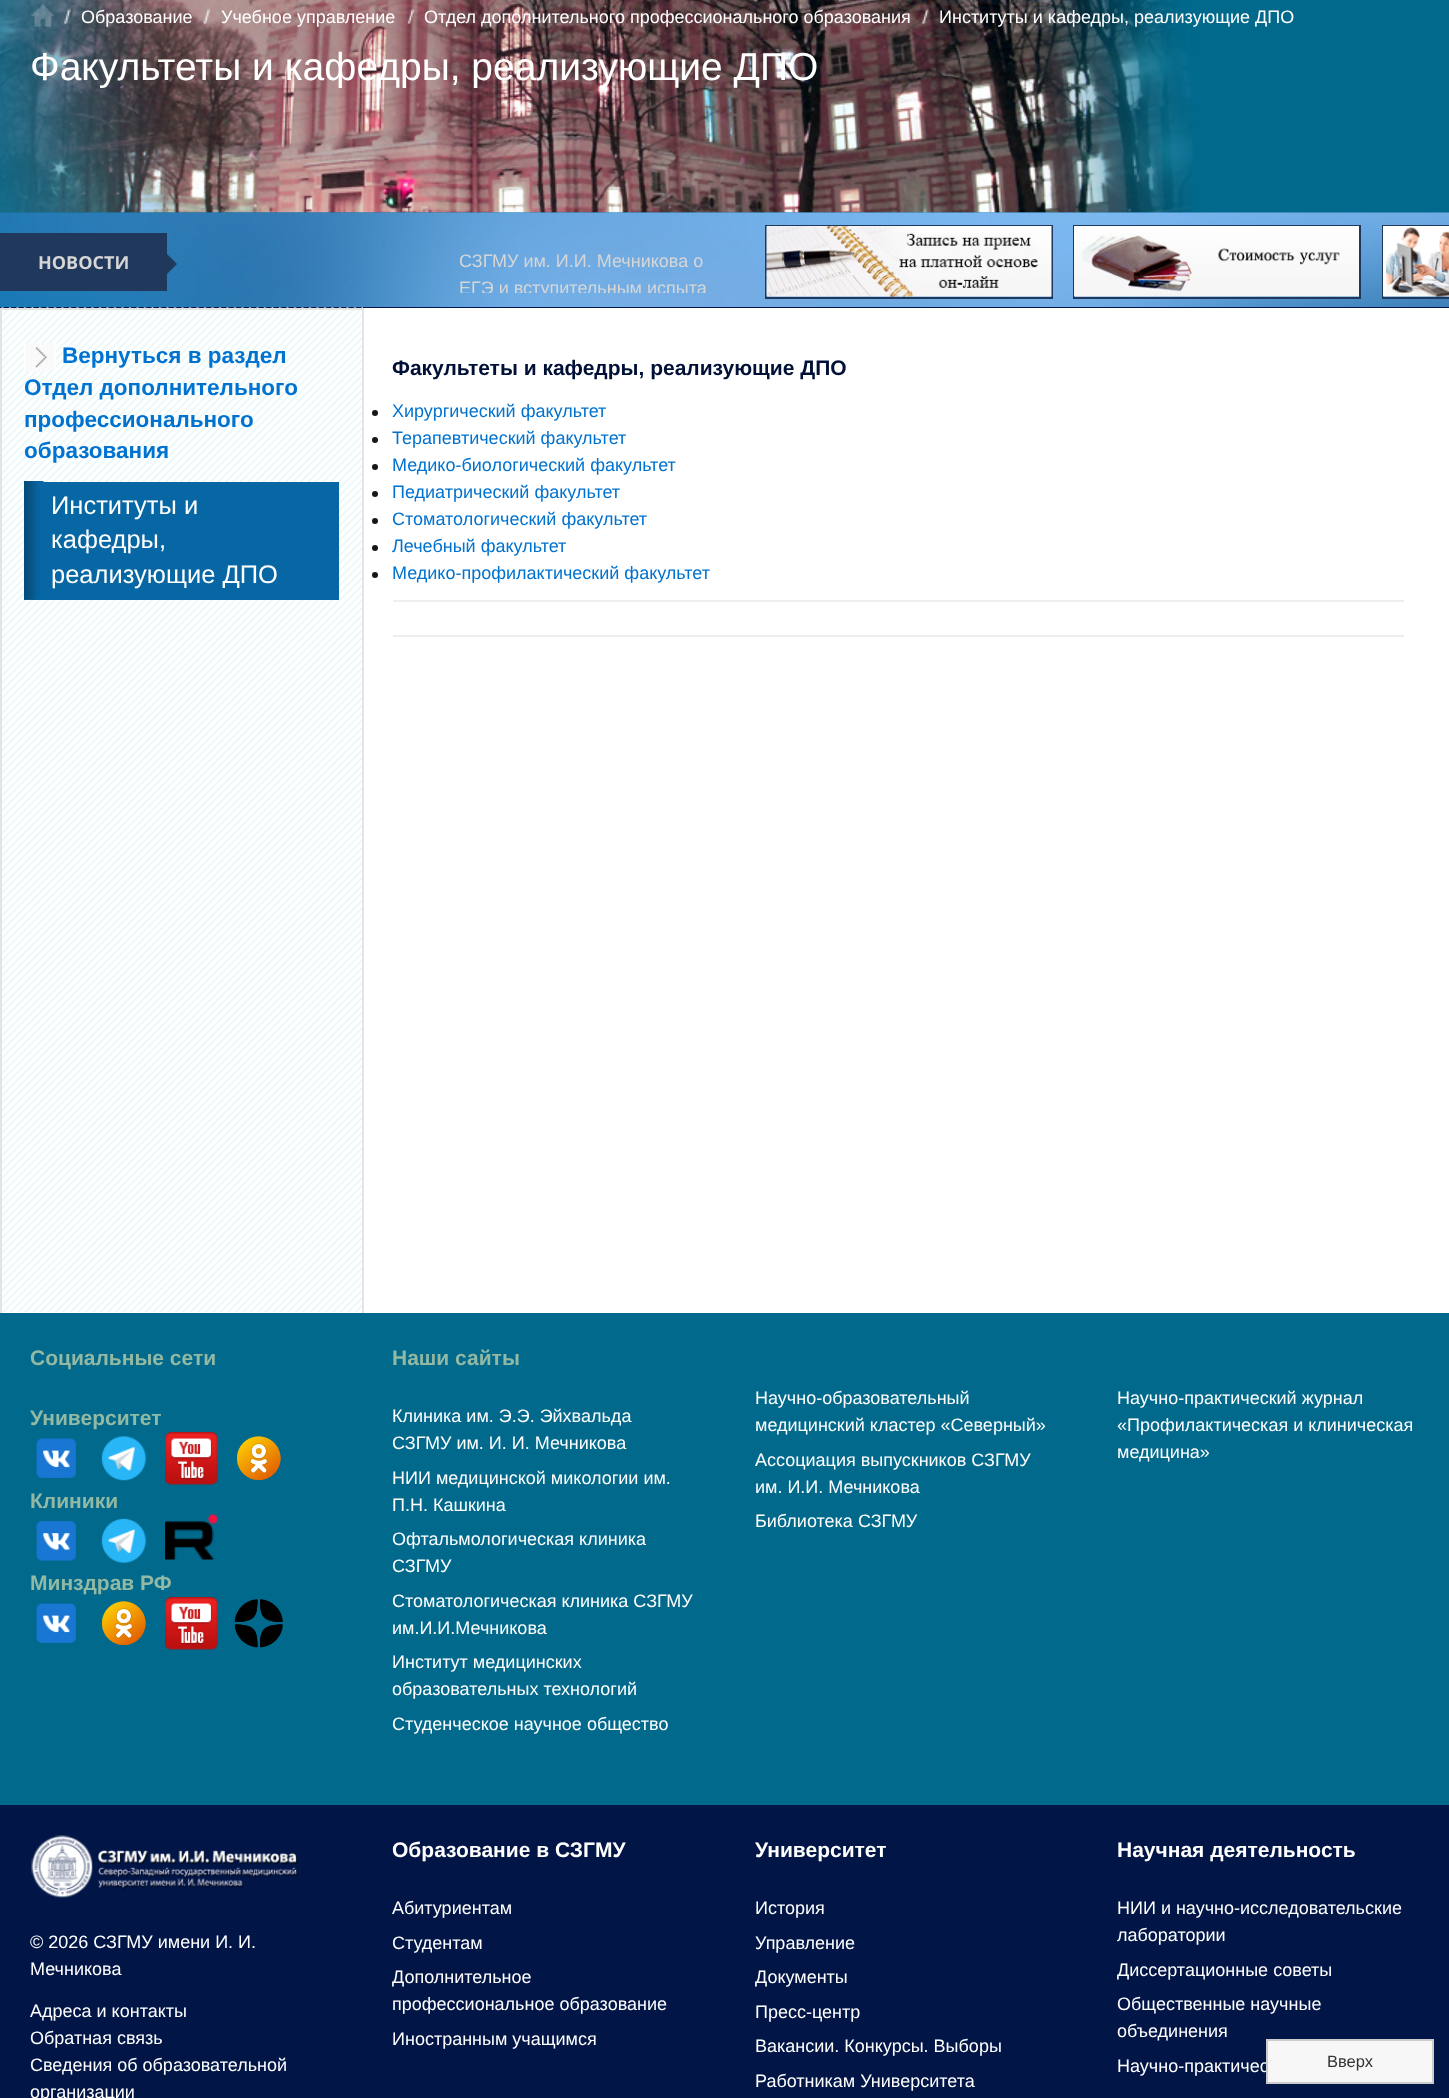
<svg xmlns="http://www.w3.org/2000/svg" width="1449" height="2098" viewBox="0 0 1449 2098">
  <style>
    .t1 { font: 18px Liberation Sans; fill: #fff; }
    .t2 { font: 39px Liberation Sans; fill: #fff; }
    .t3 { font: bold 18px Open Sans; fill: #d6d6d6; }
    .t4 { font: 18px Liberation Sans; fill: #d6d6d6; }
    .t5 { font: bold 22.5px Liberation Sans; fill: #0072cf; }
    .t6 { font: 25.5px Liberation Sans; fill: #fff; }
    .t7 { font: bold 21px Liberation Sans; fill: #001037; }
    .t8 { font: 18px Liberation Sans; fill: #0072cf; }
    .t9 { font: bold 21px Liberation Sans; fill: #91b9a4; }
    .t10 { font: bold 21px Liberation Sans; fill: #fff; }
    .t11 { font: 16.5px Liberation Sans; fill: #333; }
  </style>
  <defs>
    <clipPath id="clip1"><rect x="182" y="233" width="525" height="60"/></clipPath>
  </defs>
  <rect width="100%" height="100%" fill="#fff"/>
  <rect x="0" y="0" width="1449" height="213" fill="#00698c"/>
  <image x="0" y="0" width="1193" height="213" href="images/1.png"/>
  <image x="31" y="4" width="24" height="23" href="images/2.png"/>
  <image x="64" y="8" width="7" height="16" href="images/3.png"/>
  <text x="81" y="23" class="t1">Образование</text>
  <image x="203" y="8" width="8" height="16" href="images/4.png"/>
  <text x="221" y="23" class="t1">Учебное управление</text>
  <image x="407" y="8" width="8" height="16" href="images/5.png"/>
  <text x="424" y="23" class="t1">Отдел дополнительного профессионального образования</text>
  <image x="922" y="8" width="7" height="16" href="images/6.png"/>
  <text x="939" y="23" class="t1">Институты и кафедры, реализующие ДПО</text>
  <text x="30" y="80" class="t2">Факультеты и кафедры, реализующие ДПО</text>
  <rect x="0" y="307" width="1449" height="1" fill="#011546"/>
  <image x="0" y="212" width="1449" height="95" href="images/7.png"/>
  <rect x="0" y="233" width="167" height="58" fill="#20385c"/>
  <text x="38" y="269" class="t3">НОВОСТИ</text>
  <path d="M166.5 274.5V253.5L177 264Z" fill="#20385c"/>
  <text x="459" y="267" class="t4">СЗГМУ им. И.И. Мечникова о</text>
  <g clip-path="url(#clip1)">
    <text x="459" y="294" class="t4">ЕГЭ и вступительным испыта</text>
  </g>
  <rect x="766" y="226" width="286" height="72" fill="none" stroke="#20385c" stroke-width="2"/>
  <rect x="1074" y="226" width="286" height="72" fill="none" stroke="#20385c" stroke-width="2"/>
  <rect x="1383" y="226" width="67" height="72" fill="none" stroke="#20385c" stroke-width="2"/>
  <image x="766" y="226" width="286" height="71" href="images/8.png"/>
  <image x="1074" y="226" width="285" height="71" href="images/9.png"/>
  <image x="1383" y="226" width="66" height="71" href="images/10.png"/>
  <image x="1" y="307" width="362" height="1005" href="images/11.png"/>
  <rect x="0" y="308" width="363" height="2" fill="#e4e4e4"/>
  <rect x="362" y="308" width="2" height="1005" fill="#e4e4e4"/>
  <rect x="0" y="308" width="2" height="1005" fill="#e4e4e4"/>
  <image x="24" y="343" width="32" height="29" href="images/12.png"/>
  <text x="62" y="363" class="t5">Вернуться в раздел</text>
  <text x="24" y="395" class="t5">Отдел дополнительного</text>
  <text x="24" y="427" class="t5">профессионального</text>
  <text x="24" y="458" class="t5">образования</text>
  <rect x="24" y="482" width="315" height="118" fill="#0767a4"/>
  <image x="24" y="481" width="20" height="119" href="images/13.png"/>
  <text x="51" y="514" class="t6">Институты и</text>
  <text x="51" y="548" class="t6">кафедры,</text>
  <text x="51" y="583" class="t6">реализующие ДПО</text>
  <text x="392" y="375" class="t7">Факультеты и кафедры, реализующие ДПО</text>
  <circle cx="375" cy="413" r="3" fill="#171717"/>
  <text x="392" y="417" class="t8">Хирургический факультет</text>
  <circle cx="375" cy="440" r="3" fill="#171717"/>
  <text x="392" y="444" class="t8">Терапевтический факультет</text>
  <circle cx="375" cy="467" r="3" fill="#171717"/>
  <text x="392" y="471" class="t8">Медико-биологический факультет</text>
  <circle cx="375" cy="494" r="3" fill="#171717"/>
  <text x="392" y="498" class="t8">Педиатрический факультет</text>
  <circle cx="375" cy="521" r="3" fill="#171717"/>
  <text x="392" y="525" class="t8">Стоматологический факультет</text>
  <circle cx="375" cy="548" r="3" fill="#171717"/>
  <text x="392" y="552" class="t8">Лечебный факультет</text>
  <circle cx="375" cy="575" r="3" fill="#171717"/>
  <text x="392" y="579" class="t8">Медико-профилактический факультет</text>
  <rect x="393" y="600" width="1011" height="2" fill="#eee"/>
  <rect x="393" y="635" width="1011" height="2" fill="#eee"/>
  <rect x="0" y="1313" width="1449" height="492" fill="#00698c"/>
  <text x="30" y="1365" class="t9">Социальные сети</text>
  <text x="30" y="1425" class="t9">Университет</text>
  <image x="36" y="1438" width="40" height="40" href="images/14.png"/>
  <image x="101" y="1436" width="45" height="45" href="images/15.png"/>
  <image x="165" y="1432" width="53" height="53" href="images/16.png"/>
  <image x="237" y="1436" width="44" height="44" href="images/17.png"/>
  <text x="30" y="1508" class="t9">Клиники</text>
  <image x="36" y="1521" width="40" height="40" href="images/18.png"/>
  <image x="101" y="1518" width="45" height="45" href="images/19.png"/>
  <image x="165" y="1514" width="53" height="46" href="images/20.png"/>
  <text x="30" y="1590" class="t9">Минздрав РФ</text>
  <image x="36" y="1603" width="40" height="40" href="images/14.png"/>
  <image x="102" y="1601" width="44" height="44" href="images/21.png"/>
  <image x="165" y="1597" width="53" height="53" href="images/16.png"/>
  <image x="234" y="1599" width="49" height="49" href="images/22.png"/>
  <text x="392" y="1365" class="t9">Наши сайты</text>
  <text x="392" y="1422" class="t1">Клиника им. Э.Э. Эйхвальда</text>
  <text x="392" y="1449" class="t1">СЗГМУ им. И. И. Мечникова</text>
  <text x="392" y="1484" class="t1">НИИ медицинской микологии им.</text>
  <text x="392" y="1511" class="t1">П.Н. Кашкина</text>
  <text x="392" y="1545" class="t1">Офтальмологическая клиника</text>
  <text x="392" y="1572" class="t1">СЗГМУ</text>
  <text x="392" y="1607" class="t1">Стоматологическая клиника СЗГМУ</text>
  <text x="392" y="1634" class="t1">им.И.И.Мечникова</text>
  <text x="392" y="1668" class="t1">Институт медицинских</text>
  <text x="392" y="1695" class="t1">образовательных технологий</text>
  <text x="392" y="1730" class="t1">Студенческое научное общество</text>
  <text x="755" y="1404" class="t1">Научно-образовательный</text>
  <text x="755" y="1431" class="t1">медицинский кластер «Северный»</text>
  <text x="755" y="1466" class="t1">Ассоциация выпускников СЗГМУ</text>
  <text x="755" y="1493" class="t1">им. И.И. Мечникова</text>
  <text x="755" y="1527" class="t1">Библиотека СЗГМУ</text>
  <text x="1117" y="1404" class="t1">Научно-практический журнал</text>
  <text x="1117" y="1431" class="t1">«Профилактическая и клиническая</text>
  <text x="1117" y="1458" class="t1">медицина»</text>
  <rect x="0" y="1805" width="1449" height="293" fill="#011546"/>
  <image x="31" y="1835" width="267" height="63" href="images/23.png"/>
  <text x="30" y="1948" class="t1">© 2026 СЗГМУ имени И. И.</text>
  <text x="30" y="1975" class="t1">Мечникова</text>
  <text x="30" y="2017" class="t1">Адреса и контакты</text>
  <text x="30" y="2044" class="t1">Обратная связь</text>
  <text x="30" y="2071" class="t1">Сведения об образовательной</text>
  <text x="30" y="2098" class="t1">организации</text>
  <text x="392" y="1857" class="t10">Образование в СЗГМУ</text>
  <text x="392" y="1914" class="t1">Абитуриентам</text>
  <text x="392" y="1949" class="t1">Студентам</text>
  <text x="392" y="1983" class="t1">Дополнительное</text>
  <text x="392" y="2010" class="t1">профессиональное образование</text>
  <text x="392" y="2045" class="t1">Иностранным учащимся</text>
  <text x="755" y="1857" class="t10">Университет</text>
  <text x="755" y="1914" class="t1">История</text>
  <text x="755" y="1949" class="t1">Управление</text>
  <text x="755" y="1983" class="t1">Документы</text>
  <text x="755" y="2018" class="t1">Пресс-центр</text>
  <text x="755" y="2052" class="t1">Вакансии. Конкурсы. Выборы</text>
  <text x="755" y="2087" class="t1">Работникам Университета</text>
  <text x="1117" y="1857" class="t10">Научная деятельность</text>
  <text x="1117" y="1914" class="t1">НИИ и научно-исследовательские</text>
  <text x="1117" y="1941" class="t1">лаборатории</text>
  <text x="1117" y="1976" class="t1">Диссертационные советы</text>
  <text x="1117" y="2010" class="t1">Общественные научные</text>
  <text x="1117" y="2037" class="t1">объединения</text>
  <text x="1117" y="2072" class="t1">Научно-практичес</text>
  <rect x="1267" y="2040" width="166" height="43" fill="#f7f7f7" stroke="#ccc" stroke-width="2"/>
  <text x="1327" y="2067" class="t11">Вверх</text>
</svg>
